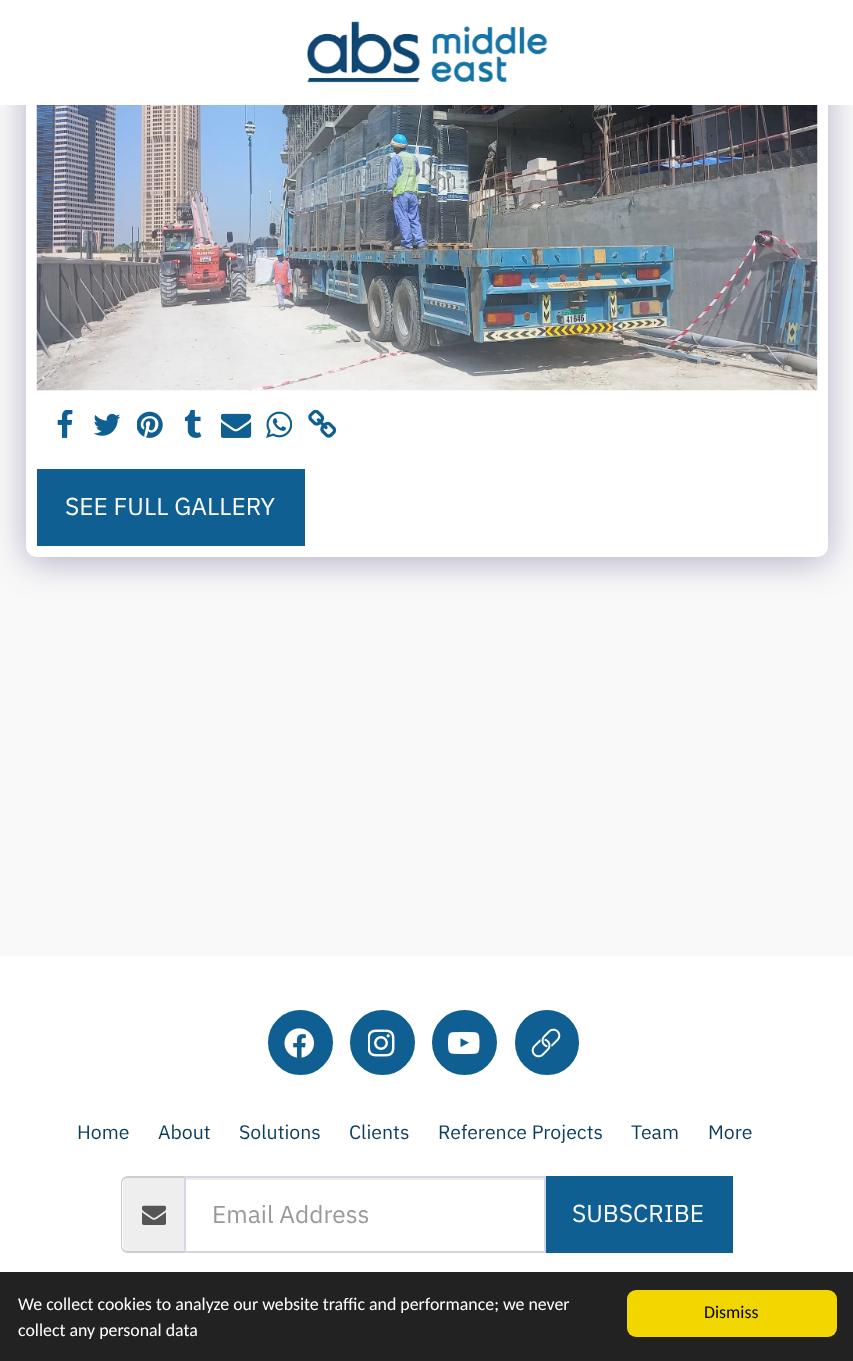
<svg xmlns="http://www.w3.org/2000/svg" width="853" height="1361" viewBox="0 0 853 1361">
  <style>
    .t1 { font: 24.5px IBM Plex Sans; fill: #fff; }
    .t2 { font: 19.5px IBM Plex Sans; fill: #0a3c5c; }
    .t3 { font: 24.5px IBM Plex Sans; fill: #999; }
    .t4 { font: 17.85px Carlito; fill: #fff; }
    .t5 { font: 17.85px Carlito; fill: #000; }
  </style>
  <rect width="100%" height="100%" fill="#fff"/>
  <rect x="0" y="105" width="853" height="851" fill="#f9f9f9"/>
  <rect x="26" y="33" width="802" height="529" rx="11" fill="#4d3f7a66" filter="blur(17.5px)"/>
  <rect x="26" y="28" width="802" height="529" rx="11" fill="#fff"/>
  <rect x="0" y="1" width="853" height="104" fill="#fff"/>
  <image x="306" y="21" width="242" height="62" href="images/1.png"/>
  <image x="36" y="105" width="782" height="286" href="images/2.png"/>
  <image x="57" y="410" width="16" height="28" href="images/3.png"/>
  <image x="93" y="413" width="28" height="23" href="images/4.png"/>
  <image x="137" y="411" width="26" height="27" href="images/5.png"/>
  <image x="184" y="410" width="18" height="28" href="images/6.png"/>
  <image x="221" y="413" width="31" height="25" href="images/7.png"/>
  <image x="266" y="411" width="26" height="27" href="images/8.png"/>
  <image x="308" y="410" width="28" height="28" href="images/9.png"/>
  <rect x="37" y="469" width="268" height="77" fill="#105f92"/>
  <text x="65" y="515" class="t1">SEE FULL GALLERY</text>
  <circle cx="300.5" cy="1042.5" r="31.5" fill="#105f92" stroke="#105f92" stroke-width="2"/>
  <image x="284" y="1028" width="30" height="30" href="images/10.png"/>
  <circle cx="382.5" cy="1042.5" r="31.5" fill="#105f92" stroke="#105f92" stroke-width="2"/>
  <image x="368" y="1029" width="27" height="28" href="images/11.png"/>
  <circle cx="464.5" cy="1042.5" r="31.5" fill="#105f92" stroke="#105f92" stroke-width="2"/>
  <image x="448" y="1031" width="32" height="24" href="images/12.png"/>
  <rect x="516" y="1011" width="62" height="63" rx="31" fill="#105f92" stroke="#105f92" stroke-width="2"/>
  <image x="531" y="1028" width="30" height="30" href="images/13.png"/>
  <text x="77" y="1139" class="t2">Home</text>
  <text x="158" y="1139" class="t2">About</text>
  <text x="239" y="1139" class="t2">Solutions</text>
  <text x="349" y="1139" class="t2">Clients</text>
  <text x="438" y="1139" class="t2">Reference Projects</text>
  <text x="631" y="1139" class="t2">Team</text>
  <text x="708" y="1139" class="t2">More</text>
  <path d="M128 1178H184V1251H128C125 1251 123 1249 123 1246V1183C123 1180 125 1178 128 1178Z" fill="#eee"/>
  <path d="M128 1176H184V1253H128C124 1253 121 1250 121 1246V1183C121 1179 124 1176 128 1176ZM128 1178H184V1251H128C125 1251 122 1249 122 1246V1183C122 1180 125 1178 128 1178Z" fill="#ccc" fill-rule="evenodd"/>
  <image x="142" y="1205" width="24" height="20" href="images/14.png"/>
  <rect x="186" y="1178" width="358" height="2" fill="#ececec"/>
  <rect x="185" y="1177" width="360" height="75" fill="none" stroke="#d4d7e5" stroke-width="2"/>
  <text x="212" y="1223" class="t3">Email Address</text>
  <rect x="546" y="1176" width="187" height="77" fill="#105f92"/>
  <text x="572" y="1222" class="t1">SUBSCRIBE</text>
  <rect x="0" y="1272" width="853" height="89" fill="#222"/>
  <text x="18" y="1310" class="t4">We collect cookies to analyze our website traffic and performance; we never</text>
  <text x="18" y="1336" class="t4">collect any personal data</text>
  <rect x="627" y="1290" width="210" height="47" rx="9" fill="#f1d600"/>
  <text x="704" y="1318" class="t5">Dismiss</text>
</svg>
